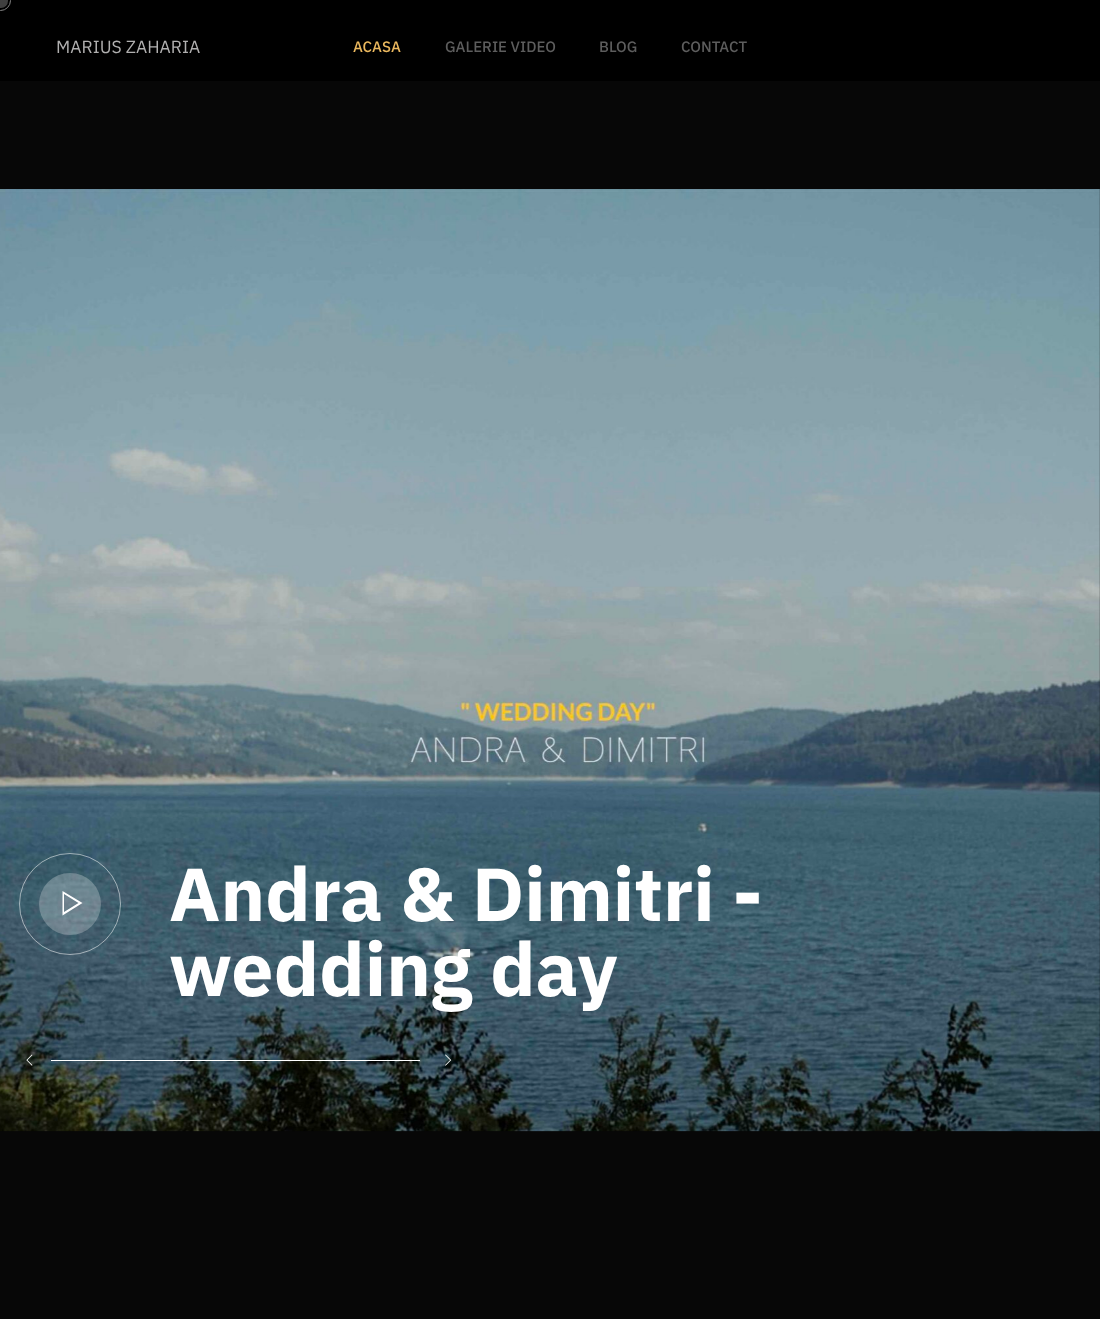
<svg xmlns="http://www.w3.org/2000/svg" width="1100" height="1319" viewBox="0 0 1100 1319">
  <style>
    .t1 { font: 17.5px IBM Plex Sans; fill: #b1b0b0; }
    .t2 { font: 500 15px IBM Plex Sans; fill: #ebb85e; }
    .t3 { font: 500 15px IBM Plex Sans; fill: #5d5d5d; }
    .t4 { font: bold 75px IBM Plex Sans; fill: #fff; }
  </style>
  <rect width="100%" height="100%" fill="#070707"/>
  <rect x="0" y="0" width="1100" height="81" fill="#000"/>
  <circle cx="1" cy="1" r="7" fill="#404040"/>
  <circle cx="0.5" cy="0.5" r="10" fill="none" stroke="#858585"/>
  <text x="56" y="53" class="t1">MARIUS ZAHARIA</text>
  <text x="353" y="52" class="t2">ACASA</text>
  <text x="445" y="52" class="t3">GALERIE VIDEO</text>
  <text x="599" y="52" class="t3">BLOG</text>
  <text x="681" y="52" class="t3">CONTACT</text>
  <image x="0" y="189" width="1100" height="943" href="images/1.png"/>
  <circle cx="70" cy="904" r="50.5" fill="none" stroke="#ffffff85"/>
  <circle cx="70" cy="904" r="31" fill="#ffffff40"/>
  <path d="M62.5 891V915.5L82.5 903ZM64 894L78.5 903L64 912Z" fill="#fff"/>
  <text x="169" y="921" class="t4">Andra &amp; Dimitri -</text>
  <text x="169" y="996" class="t4">wedding day</text>
  <image x="26" y="1054" width="7" height="12" href="images/2.png"/>
  <rect x="51" y="1060" width="369" height="1" fill="#fff"/>
  <image x="445" y="1054" width="7" height="12" href="images/3.png"/>
</svg>
